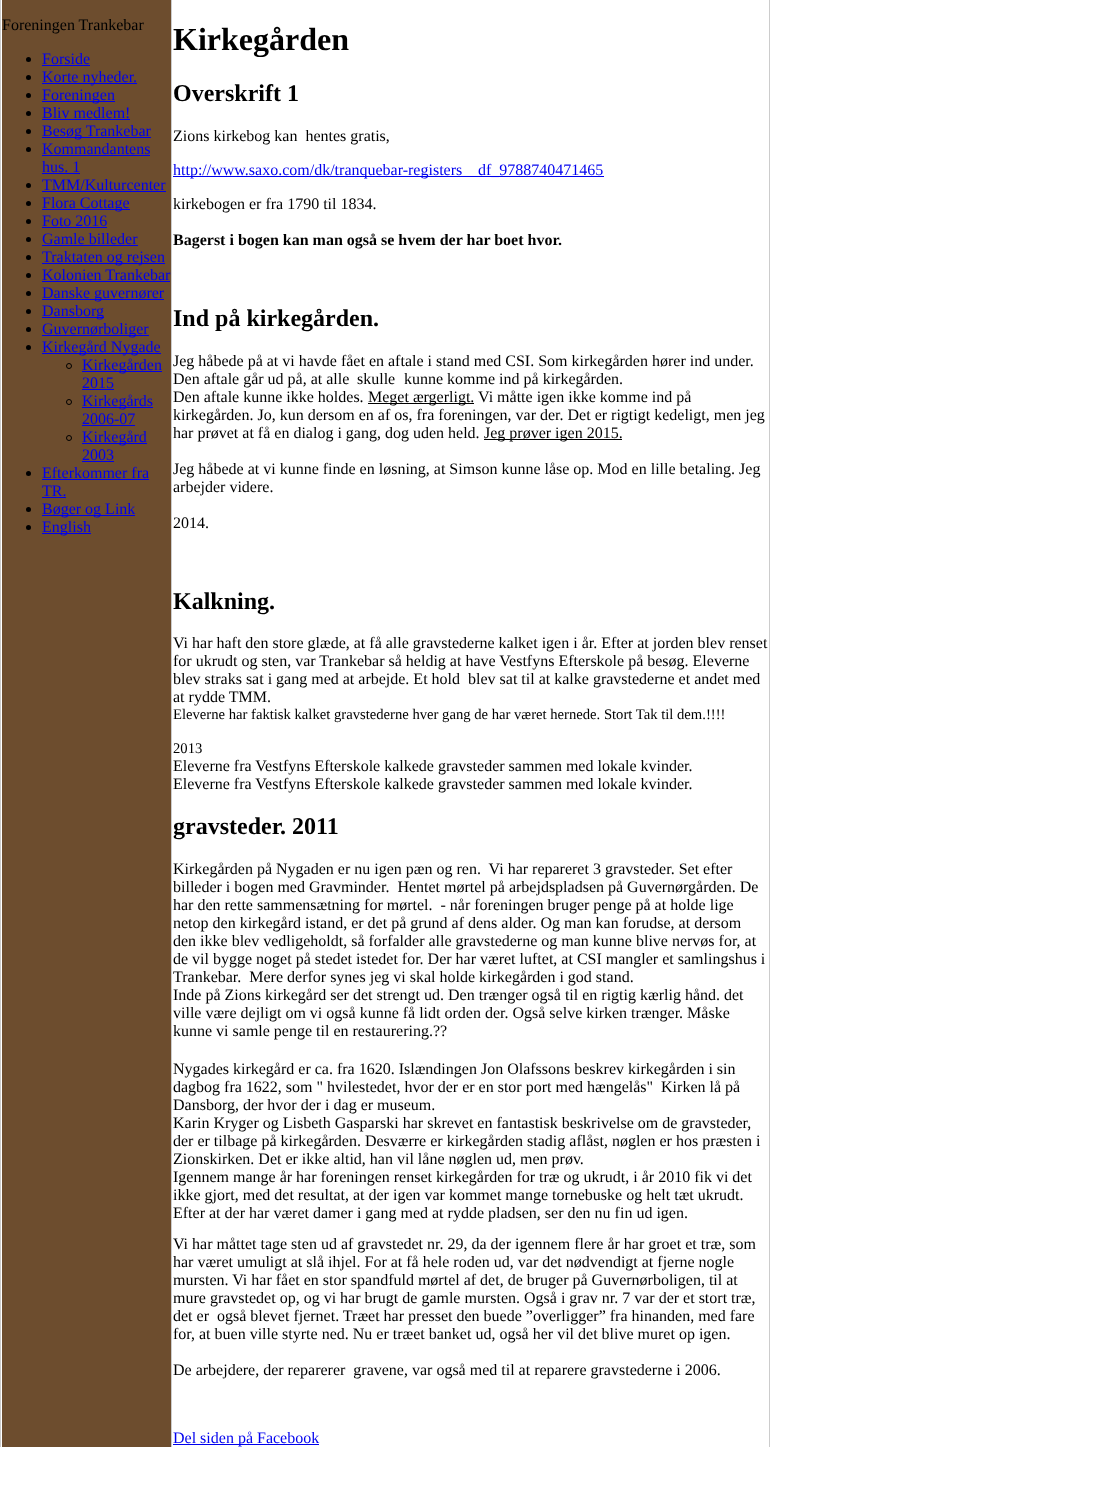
<svg xmlns="http://www.w3.org/2000/svg" width="1098" height="1498" viewBox="0 0 1098 1498">
  <style>
    .t1 { font: 16px Liberation Serif; fill: #000; }
    .t2 { font: 16px Liberation Serif; fill: #00e; }
    .t3 { font: bold 32px Liberation Serif; fill: #000; }
    .t4 { font: bold 24px Liberation Serif; fill: #000; }
    .t5 { font: bold 16px Liberation Serif; fill: #000; }
    .t6 { font: 14.65px Liberation Serif; fill: #000; }
  </style>
  <rect width="100%" height="100%" fill="#fff"/>
  <rect x="0" y="0" width="1" height="1447" fill="#ccc"/>
  <rect x="2" y="0" width="169" height="1447" fill="#6d4d2e"/>
  <text x="2" y="30" class="t1">Foreningen Trankebar</text>
  <circle cx="28.5" cy="59.5" r="2.5" fill="#000"/>
  <text x="42" y="64" class="t2">Forside</text>
  <rect x="42" y="65" width="48" height="1" fill="#00e"/>
  <circle cx="28.5" cy="77.5" r="2.5" fill="#000"/>
  <rect x="42" y="83" width="95" height="1" fill="#00e"/>
  <text x="42" y="82" class="t2">Korte nyheder.</text>
  <circle cx="28.5" cy="95.5" r="2.5" fill="#000"/>
  <rect x="42" y="101" width="73" height="1" fill="#00e"/>
  <text x="42" y="100" class="t2">Foreningen</text>
  <circle cx="28.5" cy="113.5" r="2.5" fill="#000"/>
  <text x="42" y="118" class="t2">Bliv medlem!</text>
  <rect x="42" y="119" width="88" height="1" fill="#00e"/>
  <circle cx="28.5" cy="131.5" r="2.5" fill="#000"/>
  <rect x="42" y="137" width="109" height="1" fill="#00e"/>
  <text x="42" y="136" class="t2">Besøg Trankebar</text>
  <circle cx="28.5" cy="149.5" r="2.5" fill="#000"/>
  <text x="42" y="154" class="t2">Kommandantens</text>
  <rect x="42" y="155" width="108" height="1" fill="#00e"/>
  <text x="42" y="172" class="t2">hus. 1</text>
  <rect x="42" y="173" width="38" height="1" fill="#00e"/>
  <circle cx="28.5" cy="185.5" r="2.5" fill="#000"/>
  <text x="42" y="190" class="t2">TMM/Kulturcenter</text>
  <rect x="42" y="191" width="124" height="1" fill="#00e"/>
  <circle cx="28.5" cy="203.5" r="2.5" fill="#000"/>
  <rect x="42" y="209" width="88" height="1" fill="#00e"/>
  <text x="42" y="208" class="t2">Flora Cottage</text>
  <circle cx="28.5" cy="221.5" r="2.5" fill="#000"/>
  <text x="42" y="226" class="t2">Foto 2016</text>
  <rect x="42" y="227" width="65" height="1" fill="#00e"/>
  <circle cx="28.5" cy="239.5" r="2.5" fill="#000"/>
  <text x="42" y="244" class="t2">Gamle billeder</text>
  <rect x="42" y="245" width="96" height="1" fill="#00e"/>
  <circle cx="28.5" cy="257.5" r="2.5" fill="#000"/>
  <rect x="42" y="263" width="123" height="1" fill="#00e"/>
  <text x="42" y="262" class="t2">Traktaten og rejsen</text>
  <circle cx="28.5" cy="275.5" r="2.5" fill="#000"/>
  <text x="42" y="280" class="t2">Kolonien Trankebar</text>
  <rect x="42" y="281" width="128" height="1" fill="#00e"/>
  <circle cx="28.5" cy="293.5" r="2.5" fill="#000"/>
  <rect x="42" y="299" width="122" height="1" fill="#00e"/>
  <text x="42" y="298" class="t2">Danske guvernører</text>
  <circle cx="28.5" cy="311.5" r="2.5" fill="#000"/>
  <rect x="42" y="317" width="62" height="1" fill="#00e"/>
  <text x="42" y="316" class="t2">Dansborg</text>
  <circle cx="28.5" cy="329.5" r="2.5" fill="#000"/>
  <rect x="42" y="335" width="107" height="1" fill="#00e"/>
  <text x="42" y="334" class="t2">Guvernørboliger</text>
  <circle cx="28.5" cy="347.5" r="2.5" fill="#000"/>
  <rect x="42" y="353" width="119" height="1" fill="#00e"/>
  <text x="42" y="352" class="t2">Kirkegård Nygade</text>
  <circle cx="69" cy="366" r="2.5" fill="none" stroke="#000"/>
  <rect x="82" y="371" width="80" height="1" fill="#00e"/>
  <text x="82" y="370" class="t2">Kirkegården</text>
  <text x="82" y="388" class="t2">2015</text>
  <rect x="82" y="389" width="32" height="1" fill="#00e"/>
  <circle cx="69" cy="402" r="2.5" fill="none" stroke="#000"/>
  <rect x="82" y="407" width="71" height="1" fill="#00e"/>
  <text x="82" y="406" class="t2">Kirkegårds</text>
  <text x="82" y="424" class="t2">2006-07</text>
  <rect x="82" y="425" width="53" height="1" fill="#00e"/>
  <circle cx="69" cy="438" r="2.5" fill="none" stroke="#000"/>
  <rect x="82" y="443" width="65" height="1" fill="#00e"/>
  <text x="82" y="442" class="t2">Kirkegård</text>
  <text x="82" y="460" class="t2">2003</text>
  <rect x="82" y="461" width="32" height="1" fill="#00e"/>
  <circle cx="28.5" cy="473.5" r="2.5" fill="#000"/>
  <text x="42" y="478" class="t2">Efterkommer fra</text>
  <rect x="42" y="479" width="107" height="1" fill="#00e"/>
  <text x="42" y="496" class="t2">TR.</text>
  <rect x="42" y="497" width="24" height="1" fill="#00e"/>
  <circle cx="28.5" cy="509.5" r="2.5" fill="#000"/>
  <rect x="42" y="515" width="93" height="1" fill="#00e"/>
  <text x="42" y="514" class="t2">Bøger og Link</text>
  <circle cx="28.5" cy="527.5" r="2.5" fill="#000"/>
  <rect x="42" y="533" width="49" height="1" fill="#00e"/>
  <text x="42" y="532" class="t2">English</text>
  <rect x="171" y="0" width="1" height="1447" fill="#ccc"/>
  <text x="173" y="50" class="t3">Kirkegården</text>
  <text x="173" y="101" class="t4">Overskrift 1</text>
  <text x="173" y="141" class="t1" xml:space="preserve">Zions kirkebog kan  hentes gratis,</text>
  <rect x="173" y="176" width="431" height="1" fill="#00e"/>
  <text x="173" y="175" class="t2">http://www.saxo.com/dk/tranquebar-registers</text>
  <text x="478" y="175" class="t2">df_9788740471465</text>
  <text x="173" y="209" class="t1">kirkebogen er fra 1790 til 1834.</text>
  <text x="173" y="245" class="t5">Bagerst i bogen kan man også se hvem der har boet hvor.</text>
  <text x="173" y="326" class="t4">Ind på kirkegården.</text>
  <text x="173" y="366" class="t1">Jeg håbede på at vi havde fået en aftale i stand med CSI. Som kirkegården hører ind under.</text>
  <text x="173" y="384" class="t1">Den aftale går ud på, at alle</text>
  <text x="357" y="384" class="t1">skulle</text>
  <text x="404" y="384" class="t1">kunne komme ind på kirkegården.</text>
  <text x="173" y="402" class="t1">Den aftale kunne ikke holdes.</text>
  <rect x="368" y="403" width="106" height="1" fill="#000"/>
  <text x="368" y="402" class="t1">Meget ærgerligt. Vi måtte igen ikke komme ind på</text>
  <text x="173" y="420" class="t1">kirkegården. Jo, kun dersom en af os, fra foreningen, var der. Det er rigtigt kedeligt, men jeg</text>
  <text x="173" y="438" class="t1">har prøvet at få en dialog i gang, dog uden held.</text>
  <rect x="484" y="439" width="138" height="1" fill="#000"/>
  <text x="484" y="438" class="t1">Jeg prøver igen 2015.</text>
  <text x="173" y="474" class="t1">Jeg håbede at vi kunne finde en løsning, at Simson kunne låse op. Mod en lille betaling. Jeg</text>
  <text x="173" y="492" class="t1">arbejder videre.</text>
  <text x="173" y="528" class="t1">2014.</text>
  <text x="173" y="609" class="t4">Kalkning.</text>
  <text x="173" y="648" class="t1">Vi har haft den store glæde, at få alle gravstederne kalket igen i år. Efter at jorden blev renset</text>
  <text x="173" y="666" class="t1">for ukrudt og sten, var Trankebar så heldig at have Vestfyns Efterskole på besøg. Eleverne</text>
  <text x="173" y="684" class="t1" xml:space="preserve">blev straks sat i gang med at arbejde. Et hold  blev sat til at kalke gravstederne et andet med</text>
  <text x="173" y="702" class="t1">at rydde TMM.</text>
  <text x="173" y="719" class="t6">Eleverne har faktisk kalket gravstederne hver gang de har været hernede. Stort Tak til dem.!!!!</text>
  <text x="173" y="753" class="t6">2013</text>
  <text x="173" y="771" class="t1">Eleverne fra Vestfyns Efterskole kalkede gravsteder sammen med lokale kvinder.</text>
  <text x="173" y="789" class="t1">Eleverne fra Vestfyns Efterskole kalkede gravsteder sammen med lokale kvinder.</text>
  <text x="173" y="834" class="t4">gravsteder. 2011</text>
  <text x="173" y="874" class="t1" xml:space="preserve">Kirkegården på Nygaden er nu igen pæn og ren.  Vi har repareret 3 gravsteder. Set efter</text>
  <text x="173" y="892" class="t1" xml:space="preserve">billeder i bogen med Gravminder.  Hentet mørtel på arbejdspladsen på Guvernørgården. De</text>
  <text x="173" y="910" class="t1" xml:space="preserve">har den rette sammensætning for mørtel.  - når foreningen bruger penge på at holde lige</text>
  <text x="173" y="928" class="t1">netop den kirkegård istand, er det på grund af dens alder. Og man kan forudse, at dersom</text>
  <text x="173" y="946" class="t1">den ikke blev vedligeholdt, så forfalder alle gravstederne og man kunne blive nervøs for, at</text>
  <text x="173" y="964" class="t1">de vil bygge noget på stedet istedet for. Der har været luftet, at CSI mangler et samlingshus i</text>
  <text x="173" y="982" class="t1" xml:space="preserve">Trankebar.  Mere derfor synes jeg vi skal holde kirkegården i god stand.</text>
  <text x="173" y="1000" class="t1">Inde på Zions kirkegård ser det strengt ud. Den trænger også til en rigtig kærlig hånd. det</text>
  <text x="173" y="1018" class="t1">ville være dejligt om vi også kunne få lidt orden der. Også selve kirken trænger. Måske</text>
  <text x="173" y="1036" class="t1">kunne vi samle penge til en restaurering.??</text>
  <text x="173" y="1074" class="t1">Nygades kirkegård er ca. fra 1620. Islændingen Jon Olafssons beskrev kirkegården i sin</text>
  <text x="173" y="1092" class="t1" xml:space="preserve">dagbog fra 1622, som " hvilestedet, hvor der er en stor port med hængelås"  Kirken lå på</text>
  <text x="173" y="1110" class="t1">Dansborg, der hvor der i dag er museum.</text>
  <text x="173" y="1128" class="t1">Karin Kryger og Lisbeth Gasparski har skrevet en fantastisk beskrivelse om de gravsteder,</text>
  <text x="173" y="1146" class="t1">der er tilbage på kirkegården. Desværre er kirkegården stadig aflåst, nøglen er hos præsten i</text>
  <text x="173" y="1164" class="t1">Zionskirken. Det er ikke altid, han vil låne nøglen ud, men prøv.</text>
  <text x="173" y="1182" class="t1">Igennem mange år har foreningen renset kirkegården for træ og ukrudt, i år 2010 fik vi det</text>
  <text x="173" y="1200" class="t1">ikke gjort, med det resultat, at der igen var kommet mange tornebuske og helt tæt ukrudt.</text>
  <text x="173" y="1218" class="t1">Efter at der har været damer i gang med at rydde pladsen, ser den nu fin ud igen.</text>
  <text x="173" y="1249" class="t1">Vi har måttet tage sten ud af gravstedet nr. 29, da der igennem flere år har groet et træ, som</text>
  <text x="173" y="1267" class="t1">har været umuligt at slå ihjel. For at få hele roden ud, var det nødvendigt at fjerne nogle</text>
  <text x="173" y="1285" class="t1">mursten. Vi har fået en stor spandfuld mørtel af det, de bruger på Guvernørboligen, til at</text>
  <text x="173" y="1303" class="t1">mure gravstedet op, og vi har brugt de gamle mursten. Også i grav nr. 7 var der et stort træ,</text>
  <text x="173" y="1321" class="t1" xml:space="preserve">det er  også blevet fjernet. Træet har presset den buede ”overligger” fra hinanden, med fare</text>
  <text x="173" y="1339" class="t1">for, at buen ville styrte ned. Nu er træet banket ud, også her vil det blive muret op igen.</text>
  <text x="173" y="1375" class="t1" xml:space="preserve">De arbejdere, der reparerer  gravene, var også med til at reparere gravstederne i 2006.</text>
  <rect x="173" y="1444" width="146" height="1" fill="#00e"/>
  <text x="173" y="1443" class="t2">Del siden på Facebook</text>
  <rect x="769" y="0" width="1" height="1447" fill="#ccc"/>
</svg>
